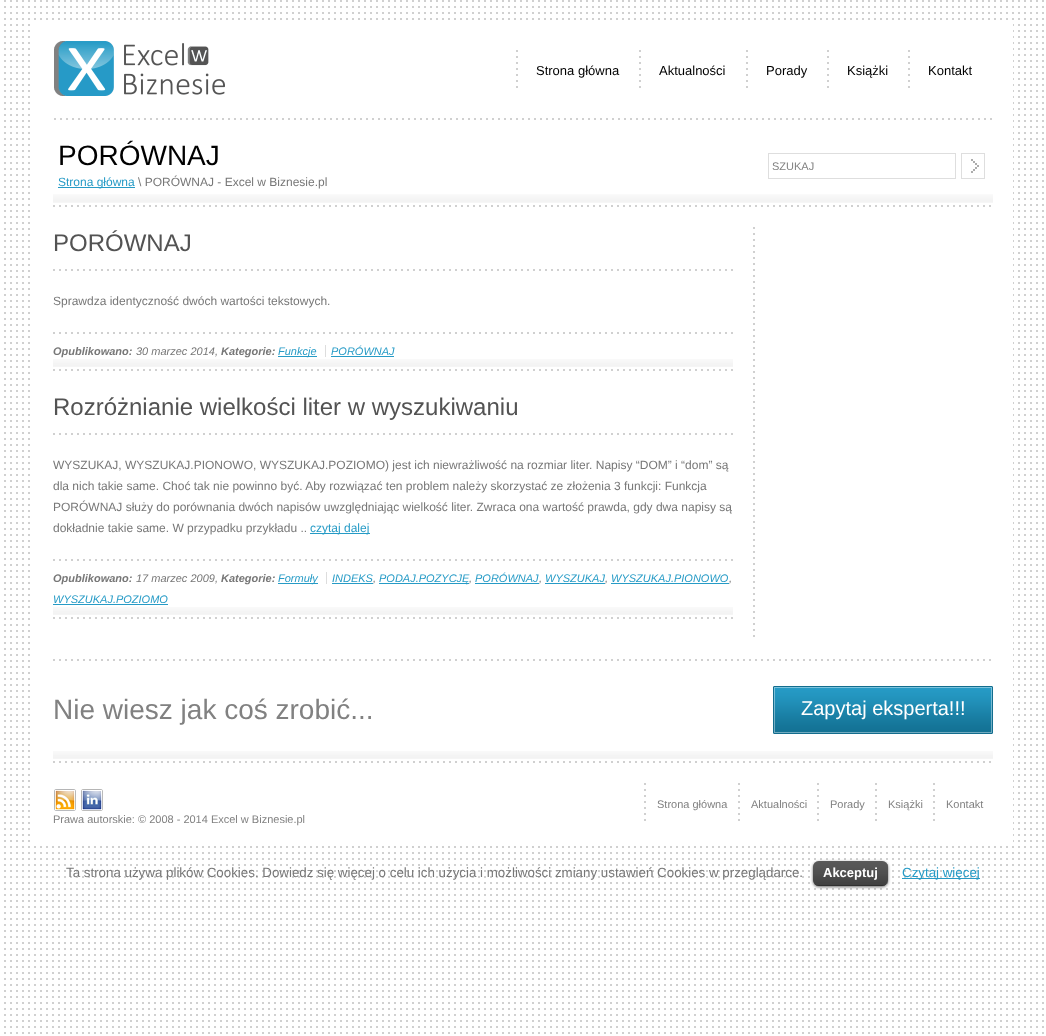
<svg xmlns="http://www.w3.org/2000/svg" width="1046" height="1036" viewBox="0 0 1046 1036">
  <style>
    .t1 { font: 13px Liberation Sans; fill: #000; }
    .t2 { font: 28px Liberation Sans; fill: #000; }
    .t3 { font: 12px Liberation Sans; fill: #269bc6; }
    .t4 { font: 12px Liberation Sans; fill: #777; }
    .t5 { font: 11px Liberation Sans; fill: #818181; }
    .t6 { font: 24px Liberation Sans; fill: #535353; }
    .t7 { font: italic bold 11px Liberation Sans; fill: #777; }
    .t8 { font: italic 11px Liberation Sans; fill: #777; }
    .t9 { font: italic 11px Liberation Sans; fill: #269bc6; }
    .t10 { font: 28px Liberation Sans; fill: #818181; }
    .t11 { font: 20px Liberation Sans; fill: #fff; }
    .t12 { font: 13.33px Liberation Sans; fill: #777; }
    .t13 { font: bold 13px Liberation Sans; fill: #fff; }
    .t14 { font: 13.33px Liberation Sans; fill: #269bc6; }
  </style>
  <rect width="100%" height="100%" fill="#fff"/>
  <image x="4" y="0" width="1040" height="1034" href="images/1.png"/>
  <rect x="34" y="24" width="979" height="818" fill="#fff"/>
  <image x="54" y="118" width="938" height="2" href="images/2.png"/>
  <image x="54" y="41" width="171" height="55" href="images/3.png"/>
  <image x="516" y="50" width="2" height="38" href="images/4.png"/>
  <text x="536" y="75" class="t1">Strona główna</text>
  <image x="639" y="50" width="2" height="38" href="images/4.png"/>
  <text x="659" y="75" class="t1">Aktualności</text>
  <image x="746" y="50" width="2" height="38" href="images/4.png"/>
  <text x="766" y="75" class="t1">Porady</text>
  <image x="827" y="50" width="2" height="38" href="images/4.png"/>
  <text x="847" y="75" class="t1">Książki</text>
  <image x="908" y="50" width="2" height="38" href="images/4.png"/>
  <text x="928" y="75" class="t1">Kontakt</text>
  <image x="53" y="194" width="940" height="9" href="images/5.png"/>
  <text x="58" y="165" class="t2">PORÓWNAJ</text>
  <rect x="58" y="187" width="77" height="1" fill="#269bc6"/>
  <text x="58" y="186" class="t3">Strona główna</text>
  <text x="138" y="186" class="t4">\ PORÓWNAJ - Excel w Biznesie.pl</text>
  <image x="768" y="153" width="217" height="26" href="images/6.png"/>
  <text x="772" y="170" class="t5">SZUKAJ</text>
  <image x="53" y="205" width="938" height="2" href="images/2.png"/>
  <image x="753" y="227" width="2" height="410" href="images/7.png"/>
  <text x="53" y="251" class="t6">PORÓWNAJ</text>
  <image x="53" y="269" width="680" height="2" href="images/8.png"/>
  <text x="53" y="305" class="t4">Sprawdza identyczność dwóch wartości tekstowych.</text>
  <image x="53" y="332" width="680" height="2" href="images/8.png"/>
  <image x="53" y="359" width="680" height="8" href="images/9.png"/>
  <text x="53" y="355" class="t7">Opublikowano:</text>
  <text x="136" y="355" class="t8">30 marzec 2014,</text>
  <text x="221" y="355" class="t7">Kategorie:</text>
  <rect x="278" y="356" width="39" height="1" fill="#269bc6"/>
  <text x="278" y="355" class="t9">Funkcje</text>
  <text x="331" y="355" class="t9">PORÓWNAJ</text>
  <rect x="325" y="345" width="1" height="12" fill="#ddd"/>
  <rect x="331" y="356" width="63" height="1" fill="#269bc6"/>
  <image x="53" y="369" width="680" height="2" href="images/8.png"/>
  <text x="53" y="415" class="t6">Rozróżnianie wielkości liter w wyszukiwaniu</text>
  <image x="53" y="433" width="680" height="2" href="images/8.png"/>
  <text x="53" y="469" class="t4">WYSZUKAJ, WYSZUKAJ.PIONOWO, WYSZUKAJ.POZIOMO) jest ich niewrażliwość na rozmiar liter. Napisy “DOM” i “dom” są</text>
  <text x="53" y="490" class="t4">dla nich takie same. Choć tak nie powinno być. Aby rozwiązać ten problem należy skorzystać ze złożenia 3 funkcji: Funkcja</text>
  <text x="53" y="511" class="t4">PORÓWNAJ służy do porównania dwóch napisów uwzględniając wielkość liter. Zwraca ona wartość prawda, gdy dwa napisy są</text>
  <text x="53" y="532" class="t4">dokładnie takie same. W przypadku przykładu ..</text>
  <rect x="310" y="533" width="60" height="1" fill="#269bc6"/>
  <text x="310" y="532" class="t3">czytaj dalej</text>
  <image x="53" y="559" width="680" height="2" href="images/8.png"/>
  <image x="53" y="607" width="680" height="8" href="images/9.png"/>
  <text x="53" y="582" class="t7">Opublikowano:</text>
  <text x="136" y="582" class="t8">17 marzec 2009,</text>
  <text x="221" y="582" class="t7">Kategorie:</text>
  <rect x="278" y="583" width="40" height="1" fill="#269bc6"/>
  <text x="278" y="582" class="t9">Formuły</text>
  <text x="332" y="582" class="t9">INDEKS</text>
  <rect x="326" y="572" width="1" height="12" fill="#ddd"/>
  <text x="373" y="582" class="t8">,</text>
  <rect x="332" y="583" width="41" height="1" fill="#269bc6"/>
  <rect x="379" y="583" width="90" height="1" fill="#269bc6"/>
  <text x="379" y="582" class="t9">PODAJ.POZYCJĘ</text>
  <text x="469" y="582" class="t8">,</text>
  <text x="475" y="582" class="t9">PORÓWNAJ</text>
  <text x="545" y="582" class="t9">WYSZUKAJ</text>
  <text x="611" y="582" class="t9">WYSZUKAJ.PIONOWO</text>
  <text x="539" y="582" class="t8">,</text>
  <rect x="475" y="583" width="64" height="1" fill="#269bc6"/>
  <text x="605" y="582" class="t8">,</text>
  <rect x="545" y="583" width="60" height="1" fill="#269bc6"/>
  <rect x="611" y="583" width="118" height="1" fill="#269bc6"/>
  <text x="729" y="582" class="t8">,</text>
  <text x="53" y="603" class="t9">WYSZUKAJ.POZIOMO</text>
  <rect x="53" y="604" width="115" height="1" fill="#269bc6"/>
  <image x="53" y="617" width="680" height="2" href="images/8.png"/>
  <image x="53" y="659" width="938" height="2" href="images/2.png"/>
  <image x="53" y="751" width="940" height="8" href="images/10.png"/>
  <text x="53" y="719" class="t10">Nie wiesz jak coś zrobić...</text>
  <image x="773" y="686" width="220" height="48" href="images/11.png"/>
  <text x="801" y="715" class="t11">Zapytaj eksperta!!!</text>
  <image x="53" y="761" width="938" height="2" href="images/2.png"/>
  <image x="644" y="783" width="2" height="38" href="images/4.png"/>
  <text x="657" y="808" class="t5">Strona główna</text>
  <image x="738" y="783" width="2" height="38" href="images/4.png"/>
  <text x="751" y="808" class="t5">Aktualności</text>
  <image x="817" y="783" width="2" height="38" href="images/4.png"/>
  <text x="830" y="808" class="t5">Porady</text>
  <image x="875" y="783" width="2" height="38" href="images/4.png"/>
  <text x="888" y="808" class="t5">Książki</text>
  <image x="933" y="783" width="2" height="38" href="images/4.png"/>
  <text x="946" y="808" class="t5">Kontakt</text>
  <image x="54" y="789" width="22" height="22" href="images/12.png"/>
  <image x="81" y="789" width="22" height="22" href="images/13.png"/>
  <text x="53" y="823" class="t5">Prawa autorskie: © 2008 - 2014 Excel w Biznesie.pl</text>
  <text x="66" y="877" class="t12">Ta strona używa plików Cookies. Dowiedz się więcej o celu ich użycia i możliwości zmiany ustawień Cookies w przeglądarce.</text>
  <rect x="813" y="862" width="75" height="25" rx="6" fill="#00000099" filter="blur(1.5px)"/>
  <rect x="813" y="861" width="75" height="25" rx="6" fill="#222"/>
  <image x="813" y="861" width="75" height="25" href="images/14.png"/>
  <rect x="816" y="885" width="69" height="1" fill="#00000040"/>
  <text x="823" y="877" class="t13">Akceptuj</text>
  <rect x="902" y="878" width="78" height="1" fill="#269bc6"/>
  <text x="902" y="877" class="t14">Czytaj więcej</text>
</svg>
